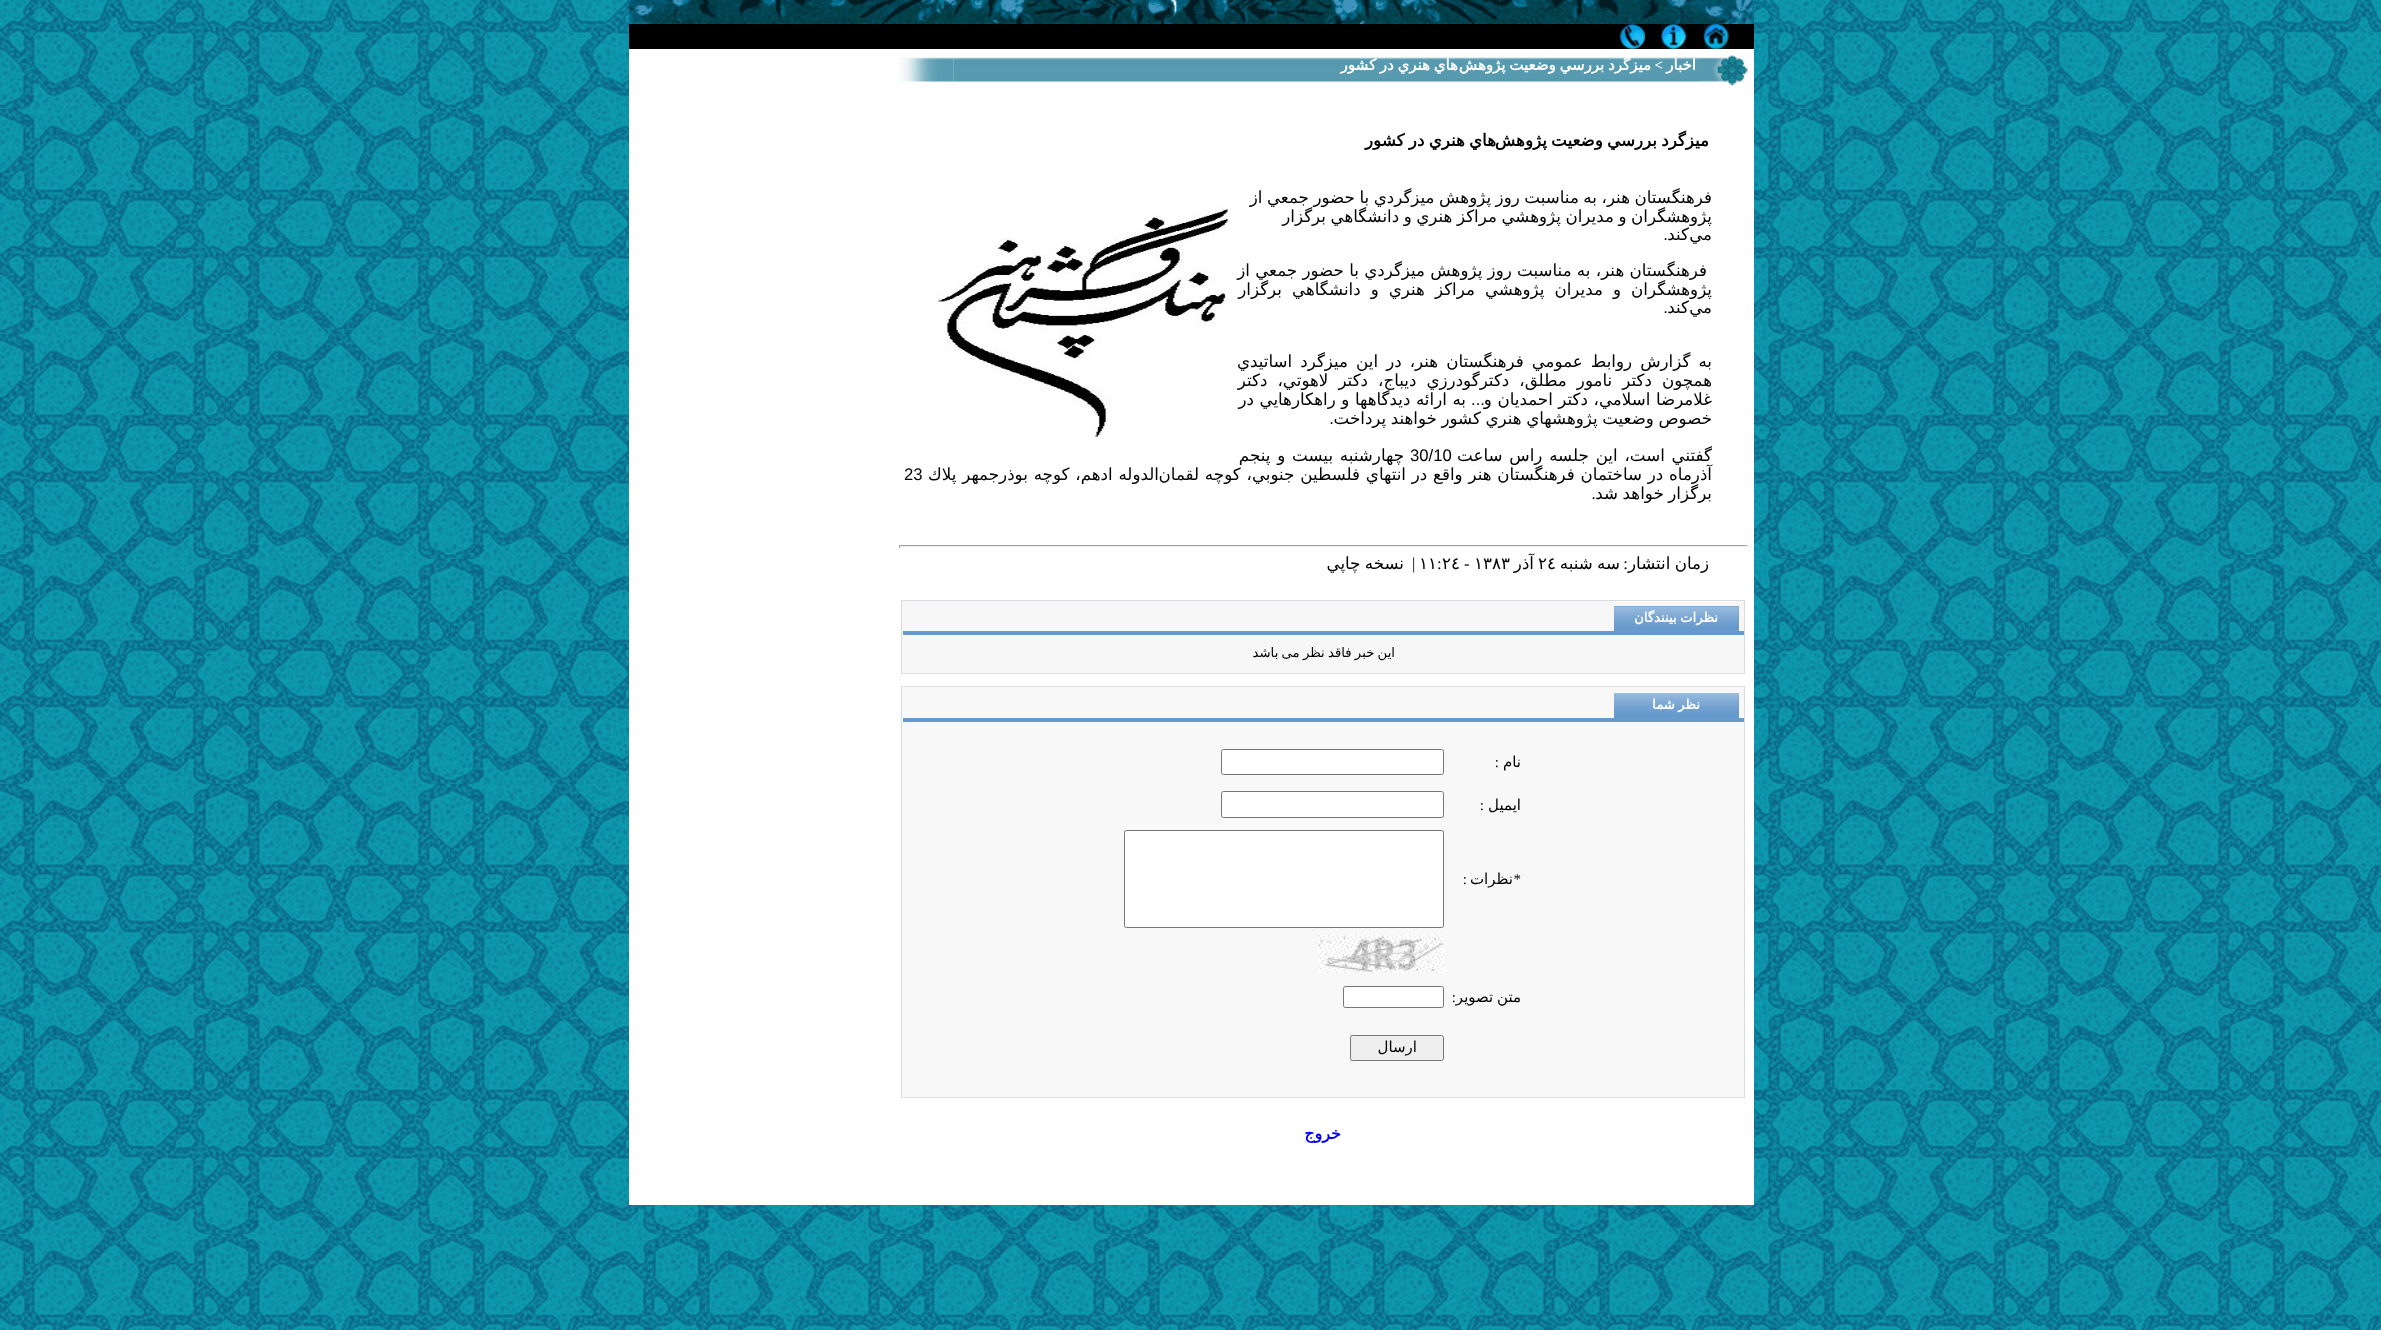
<svg xmlns="http://www.w3.org/2000/svg" width="2381" height="1330" viewBox="0 0 2381 1330">
  <style>
    .t1 { font: bold 15px DejaVu Sans; direction: rtl; fill: #fff; }
    .t2 { font: bold 15px Liberation Serif; direction: rtl; fill: #fff; }
    .t3 { font: bold 16.7px DejaVu Sans; direction: rtl; fill: #000; }
    .t4 { font: 16.7px DejaVu Sans; direction: rtl; fill: #000; }
    .t5 { font: 16.7px Liberation Sans; direction: rtl; fill: #000; }
    .t6 { font: 16.7px Liberation Sans; fill: #000; }
    .t7 { font: 16.7px Liberation Serif; direction: rtl; fill: #000; }
    .t8 { font: 16.7px DejaVu Sans; fill: #000; }
    .t9 { font: 16.7px Liberation Serif; fill: #000; }
    .t10 { font: bold 13.25px DejaVu Sans; direction: rtl; fill: #fff; }
    .t11 { font: 13.25px DejaVu Sans; direction: rtl; fill: #000; }
    .t12 { font: 15px DejaVu Sans; direction: rtl; fill: #000; }
    .t13 { font: 15px Liberation Serif; direction: rtl; fill: #000; }
    .t14 { font: bold 16px DejaVu Sans; direction: rtl; fill: #00f; }
  </style>
  <rect width="100%" height="100%" fill="#fff"/>
  <image x="0" y="0" width="2381" height="1330" href="images/1.png"/>
  <image x="628" y="0" width="1126" height="24" href="images/2.png"/>
  <rect x="629" y="24" width="1125" height="25" fill="#000"/>
  <image x="1703" y="24" width="26" height="25" href="images/3.png"/>
  <image x="1661" y="24" width="26" height="25" href="images/4.png"/>
  <image x="1620" y="24" width="25" height="25" href="images/5.png"/>
  <rect x="629" y="49" width="1125" height="1156" fill="#fff"/>
  <image x="1700" y="55" width="48" height="31" href="images/6.png"/>
  <image x="953" y="55" width="747" height="30" href="images/7.png"/>
  <text x="1696" y="70" class="t1">اخبار</text>
  <text x="1663" y="70" class="t2">&gt;</text>
  <text x="1458" y="70" word-spacing="-1" class="t1">هاي هنري در كشور</text>
  <text x="1651" y="70" word-spacing="-1" class="t1">ميزگرد بررسي وضعيت پژوهش</text>
  <image x="899" y="57" width="55" height="27" href="images/8.png"/>
  <text x="1496" y="146" word-spacing="-1" class="t3">هاي هنري در كشور</text>
  <text x="1709" y="146" word-spacing="-1" class="t3">ميزگرد بررسي وضعيت پژوهش</text>
  <text x="1712" y="203" word-spacing="-0.75" class="t4">فرهنگستان هنر، به مناسبت روز پژوهش ميزگردي با حضور جمعي از</text>
  <text x="1712" y="222" word-spacing="-0.75" class="t4">پژوهشگران و مديران پژوهشي مراكز هنري و دانشگاهي برگزار</text>
  <text x="1712" y="240" class="t4">مي</text>
  <text x="1689" y="240" class="t4">كند</text>
  <text x="1668" y="240" class="t5">.</text>
  <image x="937" y="206" width="291" height="231" href="images/9.png"/>
  <text x="1707" y="276" class="t4">فرهنگستان هنر، به مناسبت روز پژوهش ميزگردي با حضور جمعي از</text>
  <text x="1712" y="295" word-spacing="4.75" class="t4">پژوهشگران و مديران پژوهشي مراكز هنري و دانشگاهي برگزار</text>
  <text x="1712" y="313" class="t4">مي</text>
  <text x="1689" y="313" class="t4">كند</text>
  <text x="1668" y="313" class="t5">.</text>
  <text x="1712" y="367" word-spacing="2.75" class="t4">به گزارش روابط عمومي فرهنگستان هنر، در اين ميزگرد اساتيدي</text>
  <text x="1712" y="386" word-spacing="4.75" class="t4">همچون دكتر نامور مطلق، دكترگودرزي ديباج، دكتر لاهوتي، دكتر</text>
  <text x="1485" y="405" class="t5">...</text>
  <text x="1712" y="405" word-spacing="0.25" class="t4">غلامرضا اسلامي، دكتر احمديان و</text>
  <text x="1466" y="405" word-spacing="0.25" class="t4">به ارائه ديدگاهها و راهكارهايي در</text>
  <text x="1712" y="424" word-spacing="-0.75" class="t4">خصوص وضعيت پژوهشهاي هنري كشور خواهند پرداخت</text>
  <text x="1334" y="424" class="t5">.</text>
  <text x="1712" y="461" word-spacing="1.5" class="t4">گفتني است، اين جلسه راس ساعت</text>
  <text x="1410" y="461" class="t6">30/10</text>
  <text x="1404" y="461" word-spacing="1.5" class="t4">چهارشنبه بيست و پنجم</text>
  <text x="1712" y="480" word-spacing="0.5" class="t4">آذرماه در ساختمان فرهنگستان هنر واقع در انتهاي فلسطين جنوبي، كوچه لقمان</text>
  <text x="1159" y="480" word-spacing="0.5" class="t4">الدوله ادهم، كوچه بوذرجمهر پلاك</text>
  <text x="904" y="480" class="t6">23</text>
  <text x="1712" y="499" word-spacing="-0.75" class="t4">برگزار خواهد شد</text>
  <text x="1596" y="499" class="t5">.</text>
  <rect x="899" y="545" width="849" height="1" fill="#9f9f9f"/>
  <rect x="1746" y="545" width="1" height="3" fill="#eee"/>
  <rect x="899" y="546" width="849" height="1" fill="#eee"/>
  <rect x="899" y="545" width="1" height="3" fill="#9f9f9f"/>
  <text x="1709" y="569" word-spacing="-1" class="t4">زمان انتشار</text>
  <text x="1628" y="569" class="t7">:</text>
  <text x="1620" y="569" word-spacing="-1" class="t4">سه شنبه</text>
  <text x="1538" y="569" class="t8">٢٤</text>
  <text x="1534" y="569" class="t4">آذر</text>
  <text x="1474" y="569" class="t8">١٣٨٣</text>
  <text x="1464" y="569" class="t9">-</text>
  <text x="1442" y="569" class="t8">٢٤</text>
  <text x="1437" y="569" class="t9">:</text>
  <text x="1419" y="569" class="t8">١١</text>
  <text x="1412" y="569" class="t9">|</text>
  <text x="1404" y="569" word-spacing="-1" class="t4">نسخه چاپي</text>
  <rect x="901.5" y="600.5" width="843" height="73" fill="#f7f7f7" stroke="#d9dbe0"/>
  <rect x="1614" y="606" width="125" height="25" fill="#69c"/>
  <image x="1614" y="606" width="125" height="21" href="images/10.png"/>
  <text x="1718" y="622" word-spacing="-1" class="t10">نظرات بینندگان</text>
  <rect x="903" y="631" width="841" height="4" fill="#69c"/>
  <text x="1395" y="657" word-spacing="-1" class="t11">این خبر فاقد نظر می باشد</text>
  <rect x="901.5" y="686.5" width="843" height="411" fill="#f8f8f8" stroke="#d9dbe0"/>
  <rect x="1614" y="693" width="125" height="25" fill="#69c"/>
  <image x="1614" y="693" width="125" height="20" href="images/11.png"/>
  <text x="1700" y="709" word-spacing="-1" class="t10">نظر شما</text>
  <rect x="903" y="718" width="841" height="4" fill="#69c"/>
  <text x="1521" y="767" class="t12">نام</text>
  <text x="1499" y="767" class="t13">:</text>
  <rect x="1221.5" y="749.5" width="222" height="25" rx="2" fill="#fff" stroke="#767676"/>
  <text x="1521" y="810" class="t12">ایمیل</text>
  <text x="1484" y="810" class="t13">:</text>
  <rect x="1221.5" y="791.5" width="222" height="26" rx="2" fill="#fff" stroke="#767676"/>
  <text x="1521" y="884" class="t13">*</text>
  <text x="1513" y="884" class="t12">نظرات</text>
  <text x="1467" y="884" class="t13">:</text>
  <rect x="1124.5" y="830.5" width="319" height="97" rx="2" fill="#fff" stroke="#767676"/>
  <image x="1318" y="935" width="126" height="38" href="images/12.png"/>
  <text x="1521" y="1002" word-spacing="-1" class="t12">متن تصویر</text>
  <text x="1456" y="1002" class="t13">:</text>
  <rect x="1343.5" y="986.5" width="100" height="21" rx="2" fill="#fff" stroke="#767676"/>
  <rect x="1350.5" y="1035.5" width="93" height="25" rx="2" fill="#efefef" stroke="#767676"/>
  <text x="1417" y="1052" class="t12">ارسال</text>
  <text x="1341" y="1139" class="t14">خروج</text>
</svg>
